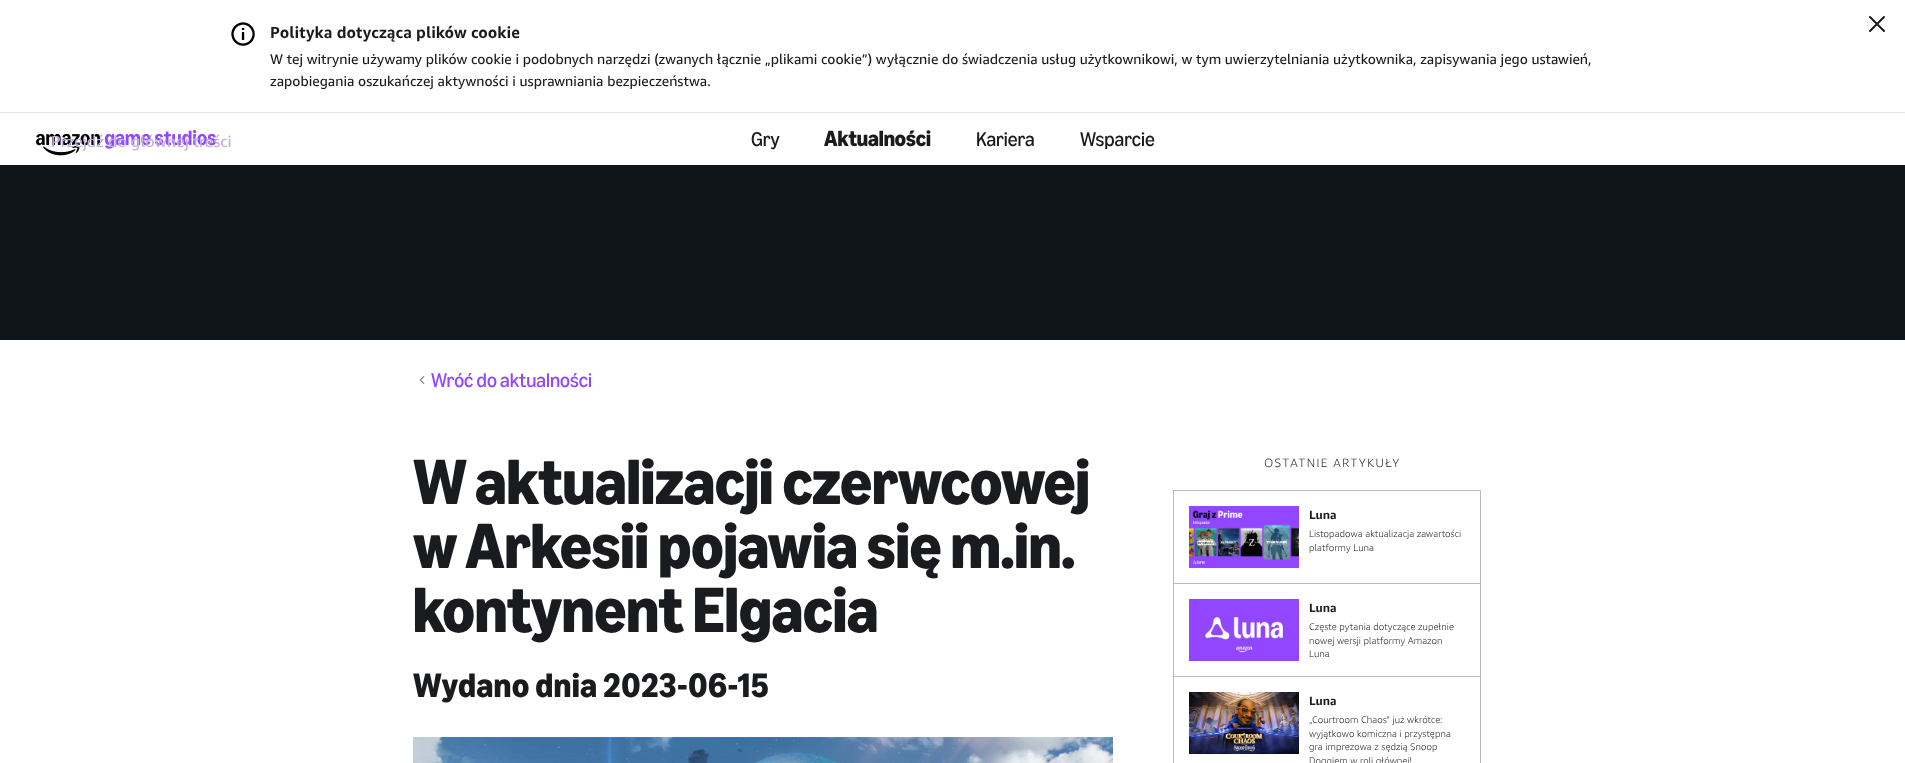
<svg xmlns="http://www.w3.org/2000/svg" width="1905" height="763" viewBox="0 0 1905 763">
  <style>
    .t1 { font: bold 16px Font; fill: #191b1e; }
    .t2 { font: 14px Font; fill: #191b1e; }
    .t3 { font: 20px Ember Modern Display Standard; fill: #191b1e; }
    .t4 { font: bold 22px Ember Modern Display Standard; fill: #191b1e; }
    .t5 { font: 16px Font; fill: #c1afdc; }
    .t6 { font: 20px Ember Modern Display Standard; fill: #9146ff; }
    .t7 { font: bold 64px Ember Modern Display Standard; fill: #191b1e; }
    .t8 { font: bold 34px Ember Modern Display Standard; letter-spacing: 0.75px; fill: #191b1e; }
    .t9 { font: 300 12px Font; letter-spacing: 1.4px; fill: #191b1e; }
    .t10 { font: bold 12px Font; fill: #191b1e; }
    .t11 { font: 300 9.6px Font; letter-spacing: 0.05px; fill: #191b1e; }
  </style>
  <rect width="100%" height="100%" fill="#fff"/>
  <rect x="0" y="112" width="1905" height="1" fill="#e7e7e7"/>
  <image x="231" y="22" width="24" height="24" href="images/1.png"/>
  <text x="270" y="38" class="t1">Polityka dotycząca plików cookie</text>
  <text x="270" y="64" class="t2">W tej witrynie używamy plików cookie i podobnych narzędzi (zwanych łącznie „plikami cookie”) wyłącznie do świadczenia usług użytkownikowi, w tym uwierzytelniania użytkownika, zapisywania jego ustawień,</text>
  <text x="270" y="86" class="t2">zapobiegania oszukańczej aktywności i usprawniania bezpieczeństwa.</text>
  <path d="M1870 31L1884 17M1884 31L1870 17" fill="none" stroke="#191b1e" stroke-width="2" stroke-linecap="round"/>
  <image x="36" y="130" width="180" height="26" href="images/2.png"/>
  <text x="751" y="146" class="t3">Gry</text>
  <text x="824" y="146" class="t4">Aktualności</text>
  <text x="976" y="146" class="t3">Kariera</text>
  <text x="1080" y="146" class="t3">Wsparcie</text>
  <text x="51" y="147" class="t5">Przejdź do głównej treści</text>
  <rect x="0" y="165" width="1905" height="175" fill="#0f1518"/>
  <image x="419" y="376" width="6" height="8" href="images/3.png"/>
  <text x="431" y="387" class="t6">Wróć do aktualności</text>
  <text x="413" y="504" class="t7">W aktualizacji czerwcowej</text>
  <text x="413" y="568" class="t7">w Arkesii pojawia się m.in.</text>
  <text x="413" y="632" class="t7">kontynent Elgacia</text>
  <text x="413" y="697" class="t8">Wydano dnia 2023-06-15</text>
  <image x="413" y="737" width="700" height="26" href="images/4.png"/>
  <text x="1264" y="467" class="t9">OSTATNIE ARTYKUŁY</text>
  <rect x="1173.5" y="490.5" width="307" height="93" fill="none" stroke="#bababa"/>
  <image x="1189" y="506" width="110" height="62" href="images/5.png"/>
  <text x="1309" y="519" class="t10">Luna</text>
  <text x="1309" y="537" class="t11">Listopadowa aktualizacja zawartości</text>
  <text x="1309" y="551" class="t11">platformy Luna</text>
  <rect x="1173.5" y="583.5" width="307" height="93" fill="none" stroke="#bababa"/>
  <image x="1189" y="599" width="110" height="62" href="images/6.png"/>
  <text x="1309" y="612" class="t10">Luna</text>
  <text x="1309" y="630" class="t11">Częste pytania dotyczące zupełnie</text>
  <text x="1309" y="644" class="t11">nowej wersji platformy Amazon</text>
  <text x="1309" y="657" class="t11">Luna</text>
  <rect x="1173.5" y="676.5" width="307" height="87" fill="none" stroke="#bababa"/>
  <image x="1189" y="692" width="110" height="62" href="images/7.png"/>
  <text x="1309" y="705" class="t10">Luna</text>
  <text x="1309" y="723" class="t11">„Courtroom Chaos” już wkrótce:</text>
  <text x="1309" y="737" class="t11">wyjątkowo komiczna i przystępna</text>
  <text x="1309" y="750" class="t11">gra imprezowa z sędzią Snoop</text>
  <text x="1309" y="764" class="t11">Doggiem w roli głównej!</text>
</svg>
